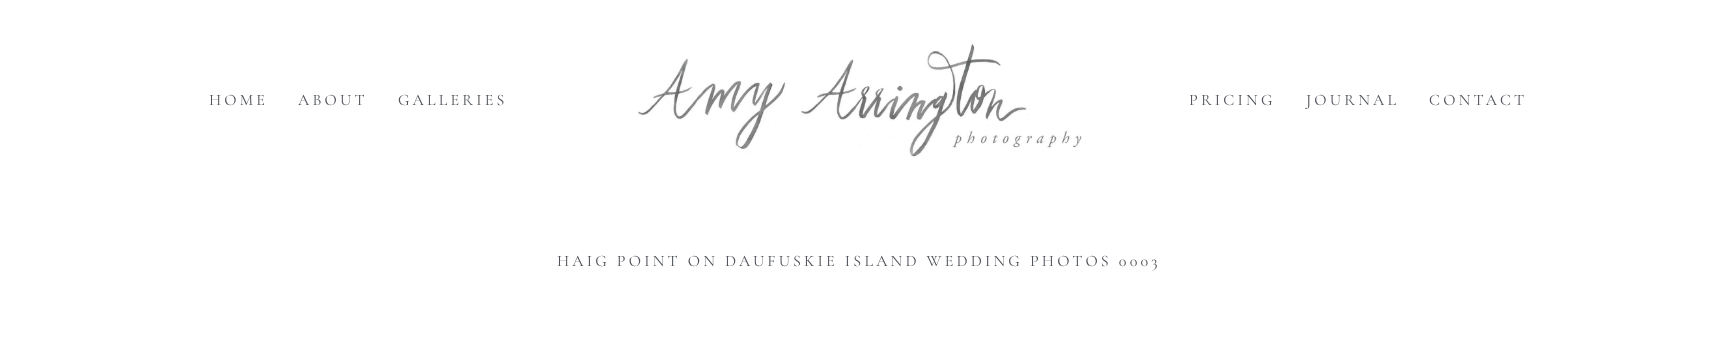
<svg xmlns="http://www.w3.org/2000/svg" width="1717" height="348" viewBox="0 0 1717 348">
  <style>
    .t1 { font: 300 16px Cormorant Garamond; letter-spacing: 3.2px; fill: #4f5258; }
  </style>
  <rect width="100%" height="100%" fill="#fff"/>
  <text x="209" y="105" class="t1">HOME</text>
  <text x="298" y="105" class="t1">ABOUT</text>
  <text x="398" y="105" class="t1">GALLERIES</text>
  <image x="638" y="43" width="444" height="114" href="images/1.png"/>
  <text x="1189" y="105" class="t1">PRICING</text>
  <text x="1306" y="105" class="t1">JOURNAL</text>
  <text x="1429" y="105" class="t1">CONTACT</text>
  <text x="557" y="266" class="t1">HAIG POINT ON DAUFUSKIE ISLAND WEDDING PHOTOS 0003</text>
</svg>
